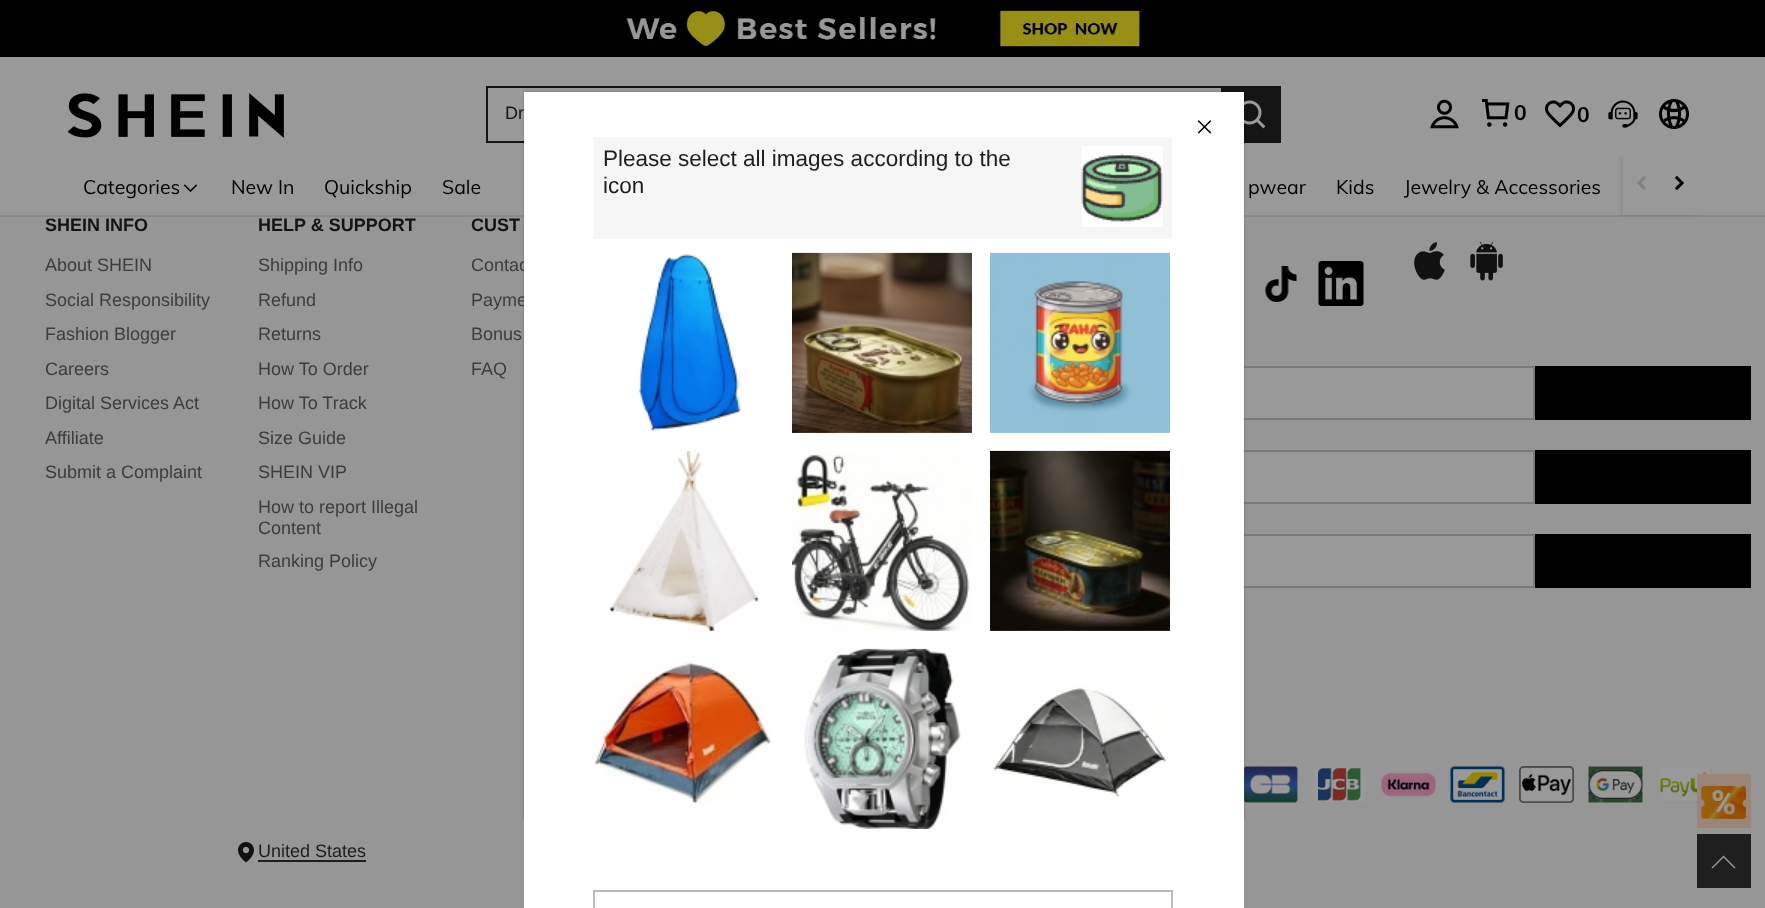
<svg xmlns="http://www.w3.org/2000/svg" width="1765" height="908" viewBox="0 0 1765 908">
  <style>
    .t1 { font: 18px Liberation Sans; fill: #141414; }
    .t2 { font: bold 21px Muli; fill: #000; }
    .t3 { font: 19.5px Muli; fill: #000; }
    .t4 { font: bold 18px Liberation Sans; fill: #141414; }
    .t5 { font: 18px Liberation Sans; fill: #3d3d3d; }
    .t6 { font: 18px Liberation Sans; fill: #1e1e1e; }
    .t7 { font: 22.5px Liberation Sans; fill: #1e1e1e; }
  </style>
  <rect width="100%" height="100%" fill="#999"/>
  <image x="0" y="0" width="1765" height="57" href="images/1.png"/>
  <rect x="0" y="215" width="1765" height="2" fill="#898989"/>
  <rect x="0" y="217" width="1765" height="691" fill="#969696"/>
  <rect x="1620" y="156" width="75" height="59" fill="#00000014" filter="blur(2px)"/>
  <rect x="1620" y="154" width="75" height="2" fill="#999"/>
  <image x="68" y="93" width="216" height="45" href="images/2.png"/>
  <rect x="486" y="86" width="735" height="2" fill="#141414"/>
  <rect x="486" y="141" width="38" height="2" fill="#141414"/>
  <rect x="486" y="86" width="2" height="57" fill="#141414"/>
  <text x="505" y="119" class="t1">Dr</text>
  <rect x="1221" y="86" width="60" height="57" fill="#141414"/>
  <image x="1244" y="100" width="22" height="29" href="images/3.png"/>
  <image x="1430" y="99" width="29" height="30" href="images/4.png"/>
  <image x="1482" y="99" width="28" height="28" href="images/5.png"/>
  <text x="1514" y="120" class="t2">0</text>
  <image x="1545" y="100" width="30" height="28" href="images/6.png"/>
  <text x="1577" y="122" class="t2">0</text>
  <image x="1608" y="100" width="30" height="28" href="images/7.png"/>
  <image x="1659" y="99" width="30" height="30" href="images/8.png"/>
  <text x="83" y="194" class="t3">Categories</text>
  <image x="183" y="184" width="15" height="8" href="images/9.png"/>
  <text x="231" y="194" class="t3">New In</text>
  <text x="324" y="194" class="t3">Quickship</text>
  <text x="442" y="194" class="t3">Sale</text>
  <text x="1248" y="194" class="t3">pwear</text>
  <text x="1336" y="194" class="t3">Kids</text>
  <text x="1404" y="194" class="t3">Jewelry &amp; Accessories</text>
  <rect x="1623" y="156" width="74" height="59" fill="#999"/>
  <image x="1637" y="176" width="9" height="14" href="images/10.png"/>
  <image x="1674" y="175" width="10" height="16" href="images/11.png"/>
  <text x="45" y="231" class="t4">SHEIN INFO</text>
  <text x="45" y="271" class="t5">About SHEIN</text>
  <text x="45" y="306" class="t5">Social Responsibility</text>
  <text x="45" y="340" class="t5">Fashion Blogger</text>
  <text x="45" y="375" class="t5">Careers</text>
  <text x="45" y="409" class="t5">Digital Services Act</text>
  <text x="45" y="444" class="t5">Affiliate</text>
  <text x="45" y="478" class="t5">Submit a Complaint</text>
  <text x="258" y="231" class="t4">HELP &amp; SUPPORT</text>
  <text x="258" y="271" class="t5">Shipping Info</text>
  <text x="258" y="306" class="t5">Refund</text>
  <text x="258" y="340" class="t5">Returns</text>
  <text x="258" y="375" class="t5">How To Order</text>
  <text x="258" y="409" class="t5">How To Track</text>
  <text x="258" y="444" class="t5">Size Guide</text>
  <text x="258" y="478" class="t5">SHEIN VIP</text>
  <text x="258" y="513" class="t5">How to report Illegal</text>
  <text x="258" y="534" class="t5">Content</text>
  <text x="258" y="567" class="t5">Ranking Policy</text>
  <text x="471" y="231" class="t4">CUST</text>
  <text x="471" y="271" class="t5">Contac</text>
  <text x="471" y="306" class="t5">Payme</text>
  <text x="471" y="340" class="t5">Bonus</text>
  <text x="471" y="375" class="t5">FAQ</text>
  <image x="1265" y="266" width="32" height="36" href="images/12.png"/>
  <image x="1318" y="261" width="46" height="45" href="images/13.png"/>
  <image x="1414" y="242" width="31" height="38" href="images/14.png"/>
  <image x="1470" y="241" width="33" height="40" href="images/15.png"/>
  <rect x="1244" y="368" width="289" height="50" fill="#999"/>
  <rect x="900" y="367" width="634" height="52" fill="none" stroke="#7a7a7a" stroke-width="2"/>
  <rect x="1535" y="366" width="216" height="54" fill="#000"/>
  <rect x="1244" y="452" width="289" height="50" fill="#999"/>
  <rect x="1020" y="451" width="514" height="52" fill="none" stroke="#7a7a7a" stroke-width="2"/>
  <rect x="1535" y="450" width="216" height="54" fill="#000"/>
  <rect x="1244" y="536" width="289" height="50" fill="#999"/>
  <rect x="1020" y="535" width="514" height="52" fill="none" stroke="#7a7a7a" stroke-width="2"/>
  <rect x="1535" y="534" width="216" height="54" fill="#000"/>
  <image x="1244" y="766" width="54" height="37" href="images/16.png"/>
  <image x="1313" y="767" width="53" height="35" href="images/17.png"/>
  <image x="1381" y="772" width="55" height="25" href="images/18.png"/>
  <image x="1450" y="766" width="55" height="37" href="images/19.png"/>
  <image x="1519" y="766" width="55" height="37" href="images/20.png"/>
  <image x="1588" y="766" width="55" height="37" href="images/21.png"/>
  <image x="1657" y="766" width="55" height="37" href="images/22.png"/>
  <image x="238" y="842" width="16" height="21" href="images/23.png"/>
  <text x="258" y="857" class="t6">United States</text>
  <rect x="258" y="860" width="108" height="2" fill="#1e1e1e"/>
  <rect x="1697" y="774" width="54" height="54" fill="#998579"/>
  <image x="1701" y="785" width="45" height="34" href="images/24.png"/>
  <rect x="1697" y="834" width="54" height="54" fill="#1f1f1f"/>
  <path d="M1735.5 867.5L1723.5 855.5L1711.5 867.5L1712.5 868.5L1723.5 857.5L1734.5 868.5Z" fill="#999"/>
  <rect x="524" y="92" width="720" height="727" fill="#0000004d" filter="blur(1px)"/>
  <rect x="524" y="92" width="720" height="816" fill="#fff"/>
  <image x="1197" y="120" width="15" height="14" href="images/25.png"/>
  <rect x="594" y="137" width="578" height="102" fill="#f6f6f6"/>
  <text x="603" y="166" class="t7">Please select all images according to the</text>
  <text x="603" y="193" class="t7">icon</text>
  <rect x="1082" y="146" width="81" height="81" fill="#fff"/>
  <image x="1081" y="153" width="82" height="69" href="images/26.png"/>
  <image x="637" y="253" width="105" height="178" href="images/27.png"/>
  <image x="792" y="252" width="180" height="181" href="images/28.png"/>
  <image x="990" y="252" width="180" height="181" href="images/29.png"/>
  <image x="609" y="451" width="150" height="180" href="images/30.png"/>
  <image x="792" y="451" width="180" height="180" href="images/31.png"/>
  <image x="990" y="450" width="180" height="181" href="images/32.png"/>
  <image x="594" y="662" width="180" height="142" href="images/33.png"/>
  <image x="804" y="648" width="157" height="181" href="images/34.png"/>
  <image x="993" y="687" width="173" height="110" href="images/35.png"/>
  <rect x="594" y="891" width="578" height="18" fill="none" stroke="#bbb" stroke-width="2"/>
</svg>
